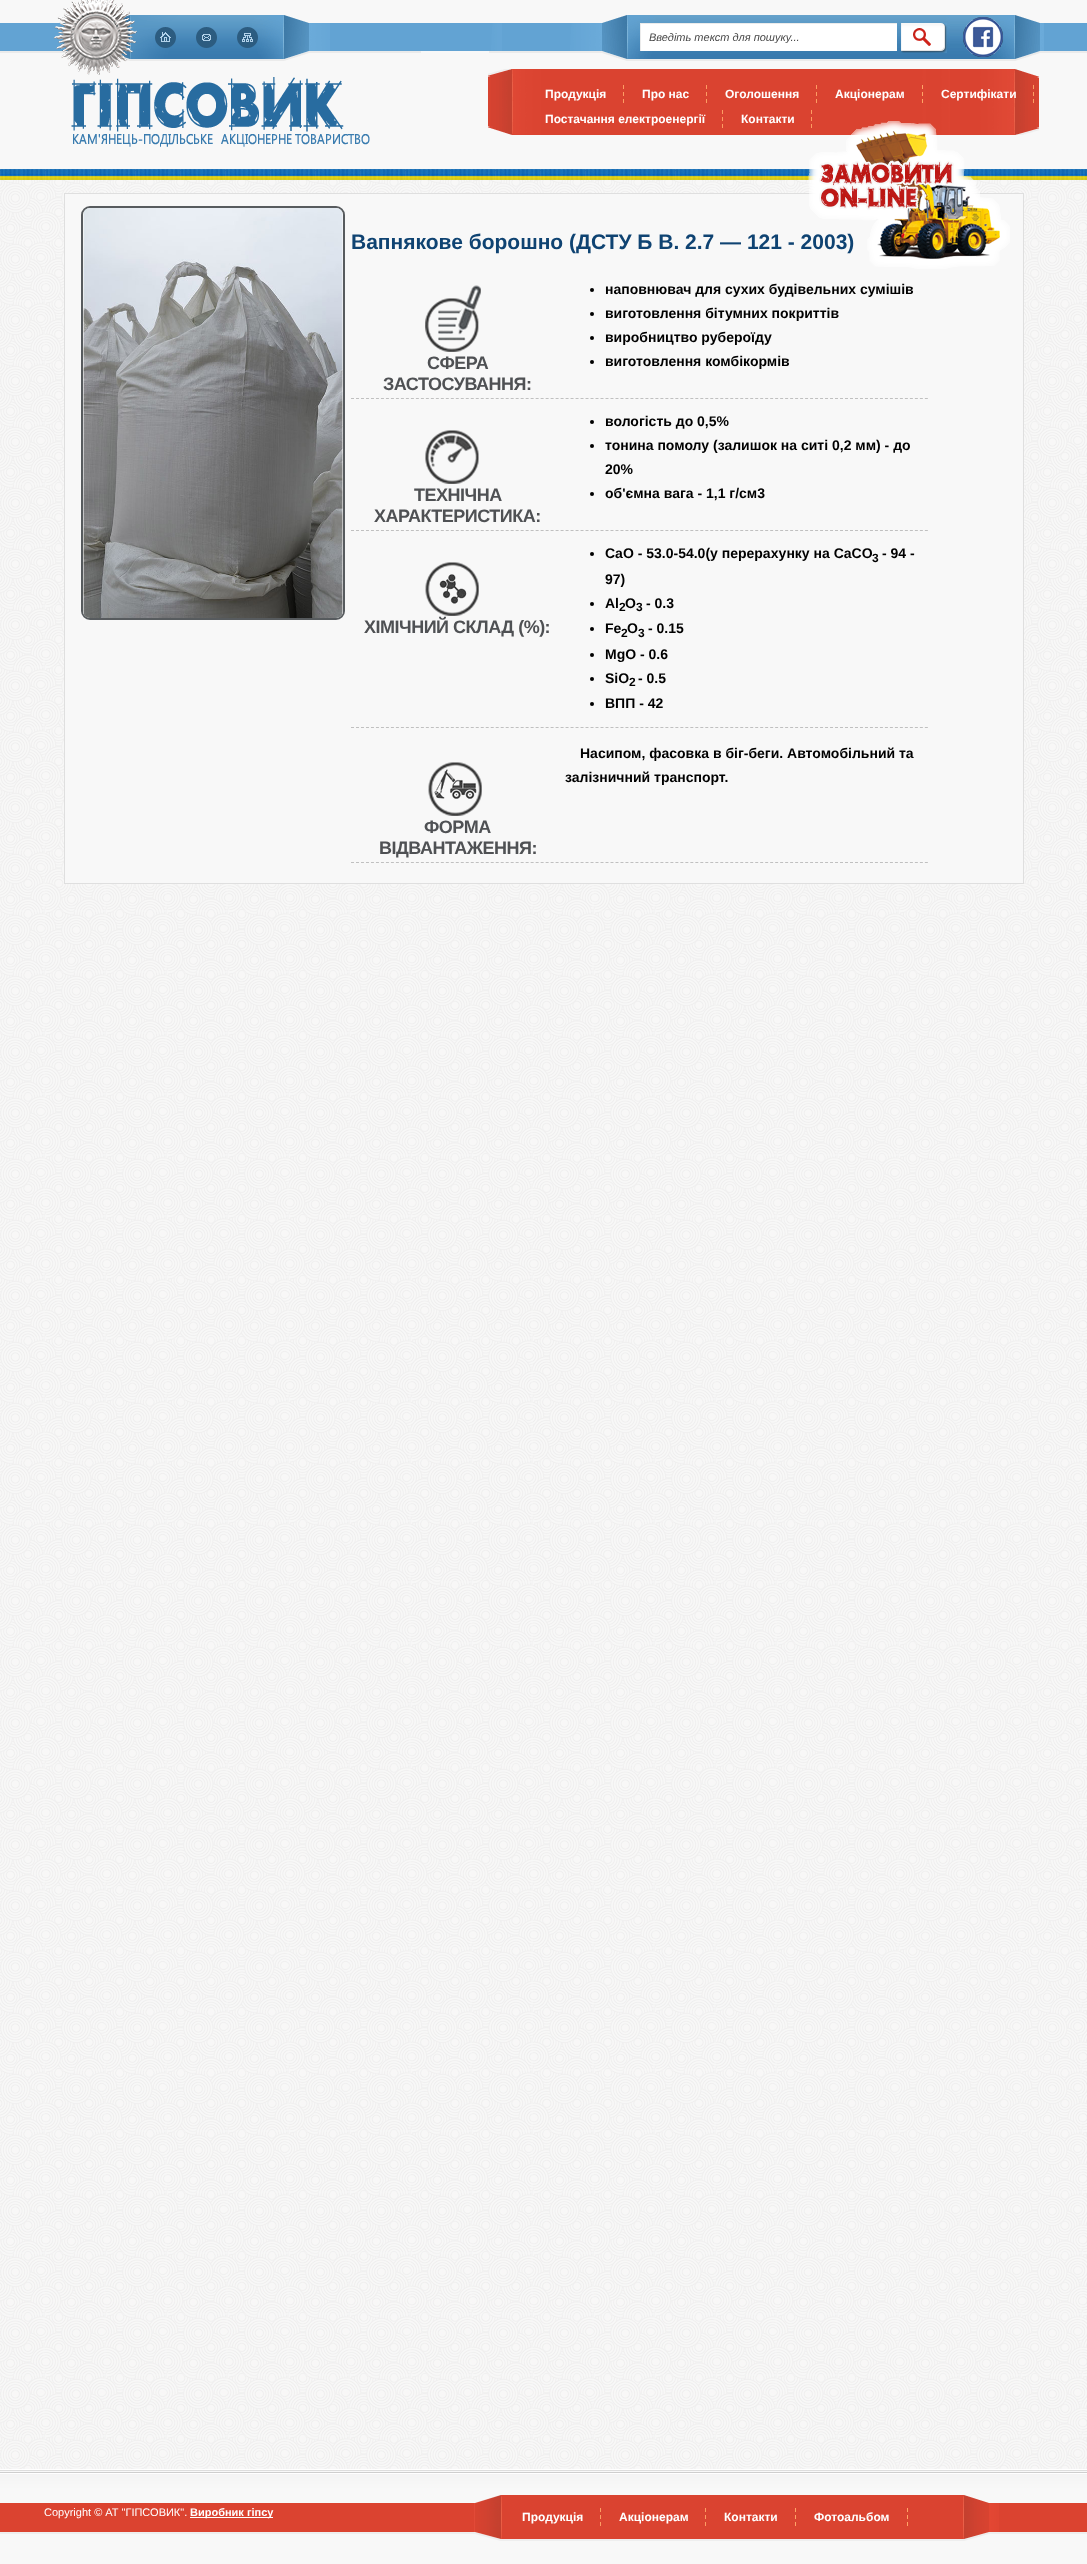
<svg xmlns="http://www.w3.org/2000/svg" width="1087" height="2564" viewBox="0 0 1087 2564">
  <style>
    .t1 { font: italic 11px Liberation Sans; fill: #464646; }
    .t2 { font: bold 12px Liberation Sans; fill: #fff; }
    .t3 { font: bold 21px Liberation Sans; fill: #0f4372; }
    .t4 { font: bold 14px Liberation Sans; fill: #000; }
    .t5 { font: bold 18px Liberation Sans; letter-spacing: -0.5px; fill: #4f5154; }
    .t6 { font: bold 12px Liberation Sans; fill: #000; }
    .t7 { font: 11px Liberation Sans; fill: #fff; }
    .t8 { font: bold 11px Liberation Sans; fill: #fff; }
  </style>
  <defs>
    <clipPath id="clip1"><rect x="649" y="31" width="235" height="12"/></clipPath>
  </defs>
  <rect width="100%" height="100%" fill="#fff"/>
  <image x="0" y="180" width="1087" height="2289" href="images/1.png"/>
  <image x="0" y="0" width="1087" height="180" href="images/2.png"/>
  <image x="116" y="15" width="214" height="46" href="images/3.png"/>
  <image x="54" y="0" width="316" height="147" href="images/4.png"/>
  <image x="421" y="15" width="623" height="120" href="images/5.png"/>
  <image x="155" y="27" width="21" height="21" href="images/6.png"/>
  <image x="196" y="27" width="21" height="21" href="images/7.png"/>
  <image x="237" y="27" width="21" height="21" href="images/8.png"/>
  <g clip-path="url(#clip1)">
    <text x="649" y="41" class="t1">Введіть текст для пошуку...</text>
  </g>
  <image x="901" y="23" width="46" height="30" href="images/9.png"/>
  <image x="963" y="17" width="40" height="40" href="images/10.png"/>
  <image x="623" y="85" width="1" height="18" href="images/11.png"/>
  <text x="545" y="98" class="t2">Продукція</text>
  <image x="706" y="85" width="1" height="18" href="images/11.png"/>
  <text x="642" y="98" class="t2">Про нас</text>
  <image x="816" y="85" width="1" height="18" href="images/11.png"/>
  <text x="725" y="98" class="t2">Оголошення</text>
  <image x="922" y="85" width="1" height="18" href="images/12.png"/>
  <text x="835" y="98" class="t2">Акціонерам</text>
  <image x="1033" y="83" width="1" height="25" href="images/13.png"/>
  <text x="941" y="98" class="t2">Сертифікати</text>
  <image x="722" y="110" width="1" height="18" href="images/11.png"/>
  <text x="545" y="123" class="t2">Постачання електроенергії</text>
  <image x="811" y="110" width="1" height="18" href="images/11.png"/>
  <text x="741" y="123" class="t2">Контакти</text>
  <rect x="64.5" y="193.5" width="959" height="690" fill="#f8f8f8" stroke="#dfdfdf"/>
  <image x="808" y="121" width="202" height="148" href="images/14.png"/>
  <rect x="82" y="207" width="262" height="412" rx="8" fill="none" stroke="#575b5e" stroke-width="2"/>
  <image x="83" y="208" width="260" height="410" href="images/15.png"/>
  <text x="351" y="249" class="t3">Вапнякове борошно (ДСТУ Б В. 2.7 — 121 - 2003)</text>
  <path d="M351 398.5H928" fill="none" stroke="#c0c0c0" stroke-dasharray="3 1.99"/>
  <circle cx="592" cy="290" r="2" fill="#000"/>
  <text x="605" y="294" class="t4">наповнювач для сухих будівельних сумішів</text>
  <circle cx="592" cy="314" r="2" fill="#000"/>
  <text x="605" y="318" class="t4">виготовлення бітумних покриттів</text>
  <circle cx="592" cy="338" r="2" fill="#000"/>
  <text x="605" y="342" class="t4">виробництво рубероїду</text>
  <circle cx="592" cy="362" r="2" fill="#000"/>
  <text x="605" y="366" class="t4">виготовлення комбікормів</text>
  <image x="425" y="285" width="56" height="67" href="images/16.png"/>
  <text x="427" y="369" class="t5">СФЕРА</text>
  <text x="383" y="390" class="t5">ЗАСТОСУВАННЯ:</text>
  <path d="M351 530.5H928" fill="none" stroke="#c0c0c0" stroke-dasharray="3 1.99"/>
  <circle cx="592" cy="422" r="2" fill="#000"/>
  <text x="605" y="426" class="t4">вологість до 0,5%</text>
  <circle cx="592" cy="446" r="2" fill="#000"/>
  <text x="605" y="450" class="t4">тонина помолу (залишок на ситі 0,2 мм) - до</text>
  <text x="605" y="474" class="t4">20%</text>
  <circle cx="592" cy="494" r="2" fill="#000"/>
  <text x="605" y="498" class="t4">об'ємна вага - 1,1 г/см3</text>
  <image x="425" y="430" width="54" height="54" href="images/17.png"/>
  <text x="414" y="501" class="t5">ТЕХНІЧНА</text>
  <text x="374" y="522" class="t5">ХАРАКТЕРИСТИКА:</text>
  <path d="M351 727.5H928" fill="none" stroke="#c0c0c0" stroke-dasharray="3 1.99"/>
  <image x="425" y="562" width="54" height="54" href="images/18.png"/>
  <text x="364" y="633" class="t5">ХІМІЧНИЙ СКЛАД (%):</text>
  <circle cx="592" cy="554" r="2" fill="#000"/>
  <text x="605" y="558" class="t4">CaO - 53.0-54.0(у перерахунку на CaСO</text>
  <text x="872" y="562" class="t6">3</text>
  <text x="882" y="558" class="t4">- 94 -</text>
  <text x="605" y="584" class="t4">97)</text>
  <circle cx="592" cy="604" r="2" fill="#000"/>
  <text x="605" y="608" class="t4">Al</text>
  <text x="619" y="611" class="t6">2</text>
  <text x="625" y="608" class="t4">O</text>
  <text x="636" y="611" class="t6">3</text>
  <text x="646" y="608" class="t4">- 0.3</text>
  <circle cx="592" cy="629" r="2" fill="#000"/>
  <text x="605" y="633" class="t4">Fe</text>
  <text x="621" y="637" class="t6">2</text>
  <text x="627" y="633" class="t4">O</text>
  <text x="638" y="637" class="t6">3</text>
  <text x="648" y="633" class="t4">- 0.15</text>
  <circle cx="592" cy="655" r="2" fill="#000"/>
  <text x="605" y="659" class="t4">MgO - 0.6</text>
  <circle cx="592" cy="679" r="2" fill="#000"/>
  <text x="605" y="683" class="t4">SiO</text>
  <text x="629" y="686" class="t6">2</text>
  <text x="638" y="683" class="t4">- 0.5</text>
  <circle cx="592" cy="704" r="2" fill="#000"/>
  <text x="605" y="708" class="t4">ВПП - 42</text>
  <path d="M351 862.5H928" fill="none" stroke="#c0c0c0" stroke-dasharray="3 1.99"/>
  <text x="580" y="758" class="t4">Насипом, фасовка в біг-беги. Автомобільний та</text>
  <text x="565" y="782" class="t4">залізничний транспорт.</text>
  <image x="428" y="762" width="54" height="54" href="images/19.png"/>
  <text x="424" y="833" class="t5">ФОРМА</text>
  <text x="379" y="854" class="t5">ВІДВАНТАЖЕННЯ:</text>
  <image x="0" y="2469" width="1087" height="95" href="images/20.png"/>
  <image x="963" y="2495" width="36" height="46" href="images/21.png"/>
  <text x="44" y="2516" class="t7">Copyright © АТ "ГІПСОВИК".</text>
  <rect x="190" y="2517" width="83" height="1" fill="#fff"/>
  <text x="190" y="2516" class="t8">Виробник гіпсу</text>
  <image x="502" y="2495" width="461" height="46" href="images/22.png"/>
  <image x="474" y="2495" width="28" height="46" href="images/23.png"/>
  <image x="600" y="2508" width="1" height="18" href="images/11.png"/>
  <text x="522" y="2521" class="t2">Продукція</text>
  <image x="705" y="2508" width="1" height="18" href="images/11.png"/>
  <text x="619" y="2521" class="t2">Акціонерам</text>
  <image x="795" y="2508" width="1" height="18" href="images/12.png"/>
  <text x="724" y="2521" class="t2">Контакти</text>
  <image x="907" y="2508" width="1" height="18" href="images/12.png"/>
  <text x="814" y="2521" class="t2">Фотоальбом</text>
</svg>
